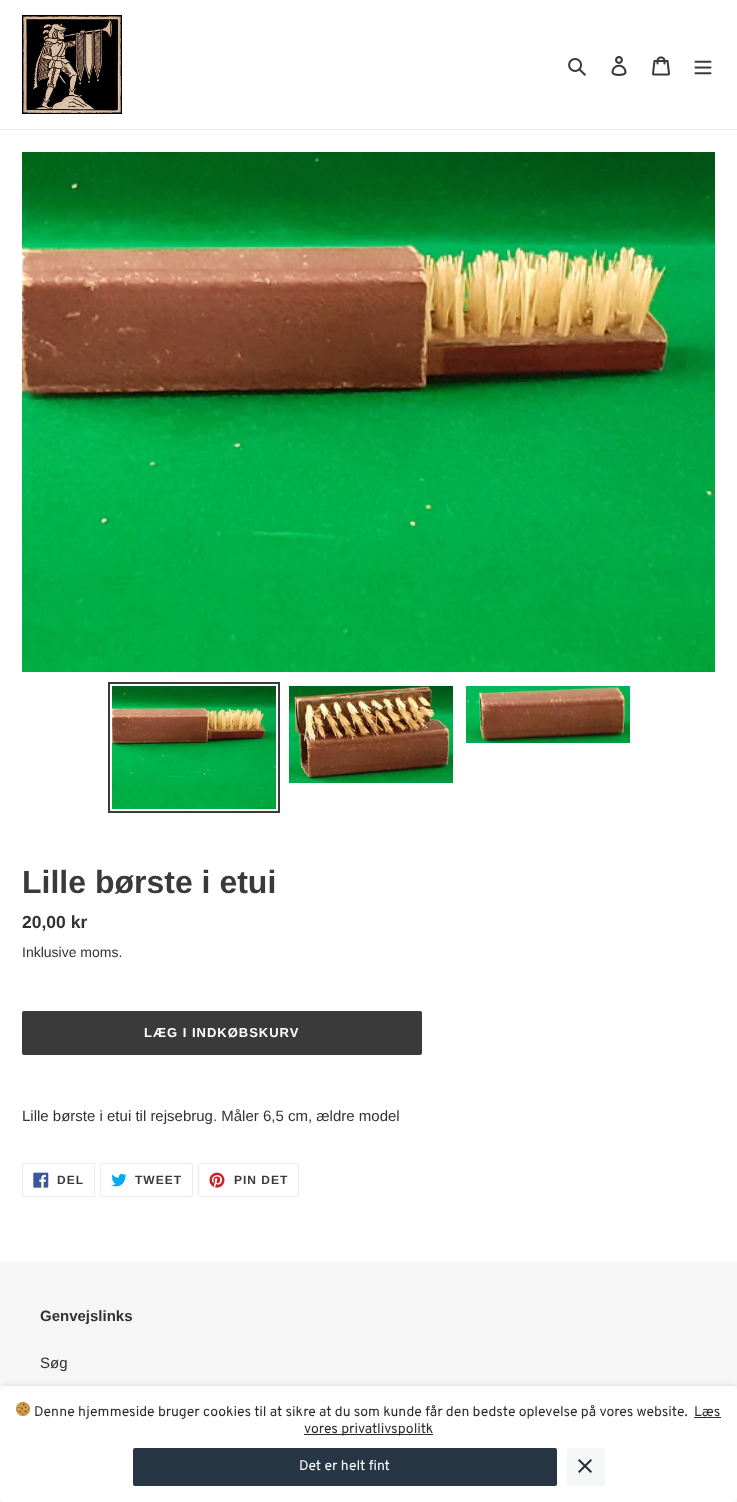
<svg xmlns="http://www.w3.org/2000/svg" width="737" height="1502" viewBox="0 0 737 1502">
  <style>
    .t1 { font: bold 32px Liberation Sans; fill: #3a3a3a; }
    .t2 { font: bold 17.5px Liberation Sans; fill: #333232; }
    .t3 { font: 14px Liberation Sans; fill: #333232; }
    .t4 { font: bold 13px Liberation Sans; letter-spacing: 1px; fill: #fff; }
    .t5 { font: 15px Liberation Sans; fill: #333232; }
    .t6 { font: bold 12px Liberation Sans; letter-spacing: 1px; fill: #3a3a3a; }
    .t7 { font: bold 15px Liberation Sans; fill: #333232; }
    .t8 { font: 14px Overpass; fill: #2d2d2d; }
    .t9 { font: 14px Overpass; fill: #fff; }
  </style>
  <defs>
    <clipPath id="clip1"><path d="M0 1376H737V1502H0ZM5 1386H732C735 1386 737 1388 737 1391V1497C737 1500 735 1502 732 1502H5C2 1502 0 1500 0 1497V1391C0 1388 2 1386 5 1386Z" clip-rule="evenodd"/></clipPath>
  </defs>
  <rect width="100%" height="100%" fill="#fff"/>
  <rect x="0" y="129" width="737" height="1" fill="#ebebeb"/>
  <image x="22" y="15" width="100" height="99" href="images/1.png"/>
  <image x="568" y="58" width="18" height="18" href="images/2.png"/>
  <image x="611" y="56" width="16" height="20" href="images/3.png"/>
  <image x="652" y="56" width="18" height="20" href="images/4.png"/>
  <image x="694" y="60" width="18" height="15" href="images/5.png"/>
  <image x="22" y="152" width="693" height="520" href="images/6.png"/>
  <rect x="109" y="683" width="170" height="129" fill="none" stroke="#3a3a3a" stroke-width="2"/>
  <image x="112" y="686" width="164" height="123" href="images/7.png"/>
  <image x="289" y="686" width="164" height="97" href="images/8.png"/>
  <image x="466" y="686" width="164" height="57" href="images/9.png"/>
  <text x="22" y="893" class="t1">Lille børste i etui</text>
  <text x="22" y="928" class="t2">20,00 kr</text>
  <text x="22" y="957" class="t3">Inklusive moms.</text>
  <rect x="22" y="1011" width="400" height="44" rx="2" fill="#3a3a3a"/>
  <text x="144" y="1037" class="t4">LÆG I INDKØBSKURV</text>
  <text x="22" y="1121" class="t5">Lille børste i etui til rejsebrug. Måler 6,5 cm, ældre model</text>
  <rect x="22.5" y="1163.5" width="72" height="33" rx="1.5" fill="none" stroke="#ebebeb"/>
  <image x="33" y="1172" width="16" height="16" href="images/10.png"/>
  <text x="57" y="1184" class="t6">DEL</text>
  <rect x="100.5" y="1163.5" width="92" height="33" rx="1.5" fill="none" stroke="#ebebeb"/>
  <image x="111" y="1173" width="16" height="14" href="images/11.png"/>
  <text x="135" y="1184" class="t6">TWEET</text>
  <rect x="198.5" y="1163.5" width="100" height="33" rx="1.5" fill="none" stroke="#ebebeb"/>
  <image x="209" y="1172" width="16" height="16" href="images/12.png"/>
  <text x="234" y="1184" class="t6">PIN DET</text>
  <rect x="0" y="1262" width="737" height="124" fill="#f6f6f6"/>
  <text x="40" y="1321" class="t7">Genvejslinks</text>
  <text x="40" y="1368" class="t5">Søg</text>
  <g clip-path="url(#clip1)">
    <rect x="0" y="1386" width="737" height="116" rx="5" fill="#0000001f" filter="blur(3px)"/>
  </g>
  <image x="16" y="1402" width="14" height="14" href="images/13.png"/>
  <text x="34" y="1416" class="t8">Denne hjemmeside bruger cookies til at sikre at du som kunde får den bedste oplevelse på vores website.</text>
  <text x="694" y="1416" class="t8">Læs</text>
  <rect x="694" y="1417" width="27" height="1" fill="#2d2d2d"/>
  <rect x="304" y="1434" width="129" height="1" fill="#2d2d2d"/>
  <text x="304" y="1433" class="t8">vores privatlivspolitk</text>
  <rect x="133" y="1448" width="424" height="38" rx="2" fill="#263644"/>
  <text x="299" y="1470" class="t9">Det er helt fint</text>
  <rect x="567" y="1448" width="38" height="38" rx="2" fill="#f4f6f8"/>
  <image x="578" y="1459" width="14" height="14" href="images/14.png"/>
</svg>
